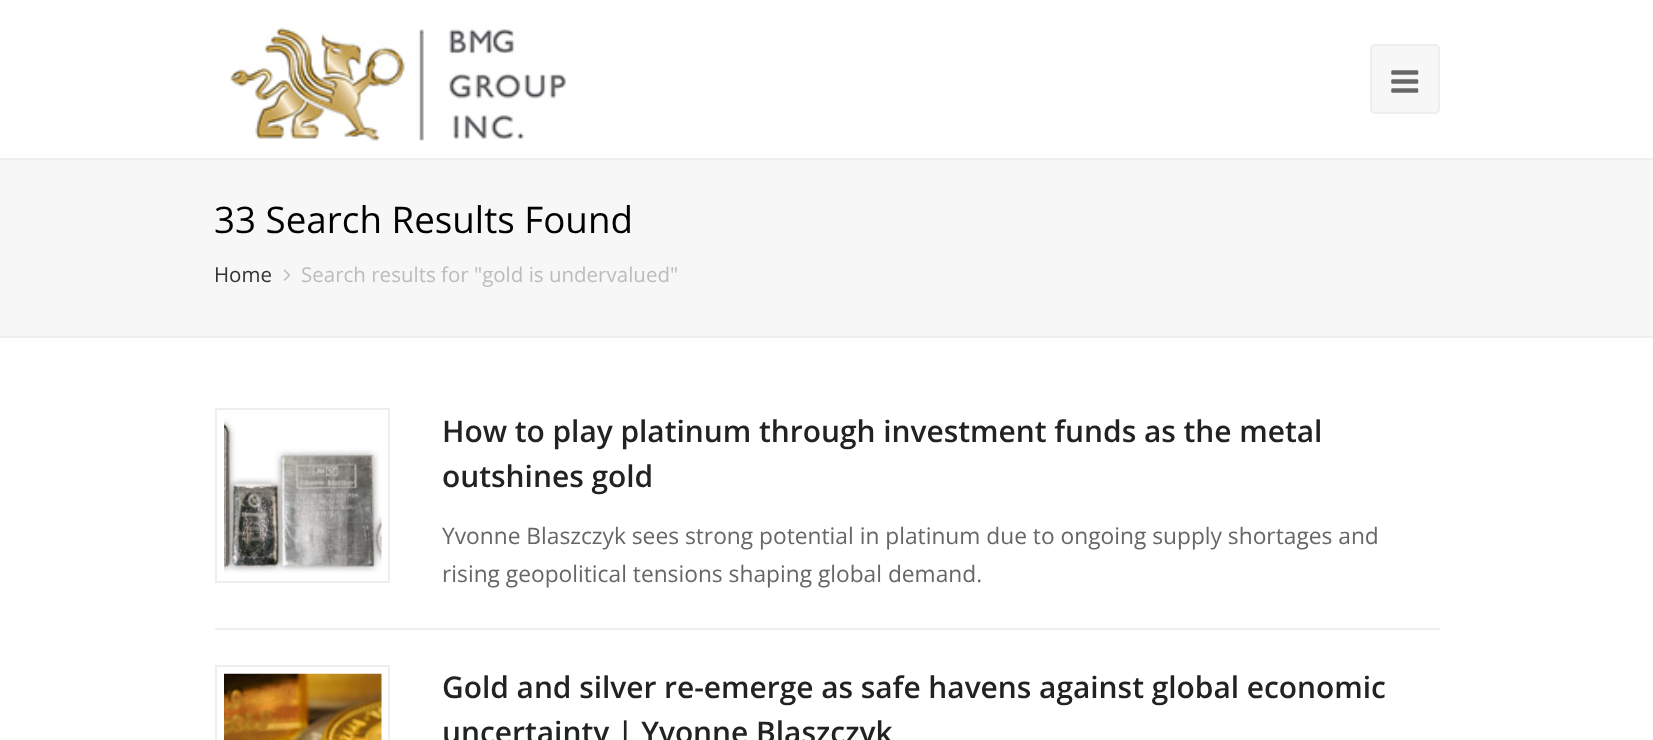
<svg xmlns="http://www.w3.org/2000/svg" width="1653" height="740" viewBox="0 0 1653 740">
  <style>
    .t1 { font: 36.75px Open Sans; fill: #000; }
    .t2 { font: 20.5px Open Sans; fill: #333; }
    .t3 { font: 20.5px Open Sans; fill: #bcbcbc; }
    .t4 { font: 600 29.9px Open Sans; fill: #222; }
    .t5 { font: 22.75px Open Sans; fill: #666; }
  </style>
  <rect width="100%" height="100%" fill="#fff"/>
  <image x="230" y="27" width="336" height="114" href="images/1.png"/>
  <rect x="1371" y="45" width="68" height="68" rx="4" fill="#f7f7f7" stroke="#eee" stroke-width="2"/>
  <image x="1391" y="70" width="28" height="23" href="images/2.png"/>
  <rect x="0" y="160" width="1653" height="176" fill="#f7f7f7"/>
  <rect x="0" y="158" width="1653" height="2" fill="#eee"/>
  <rect x="0" y="336" width="1653" height="2" fill="#eee"/>
  <text x="214" y="233" class="t1">33 Search Results Found</text>
  <text x="214" y="282" class="t2">Home</text>
  <image x="283" y="269" width="8" height="12" href="images/3.png"/>
  <text x="301" y="282" class="t3">Search results for "gold is undervalued"</text>
  <rect x="215" y="628" width="1225" height="2" fill="#eee"/>
  <rect x="216" y="409" width="173" height="173" fill="none" stroke="#eee" stroke-width="2"/>
  <image x="224" y="418" width="158" height="155" href="images/4.png"/>
  <text x="442" y="442" word-spacing="-0.1" class="t4">How to play platinum through investment funds as the metal</text>
  <text x="442" y="487" class="t4">outshines gold</text>
  <text x="442" y="544" class="t5">Yvonne Blaszczyk sees strong potential in platinum due to ongoing supply shortages and</text>
  <text x="442" y="582" class="t5">rising geopolitical tensions shaping global demand.</text>
  <rect x="216" y="666" width="173" height="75" fill="none" stroke="#eee" stroke-width="2"/>
  <image x="224" y="673" width="158" height="67" href="images/5.png"/>
  <text x="442" y="698" word-spacing="-0.1" class="t4">Gold and silver re-emerge as safe havens against global economic</text>
  <text x="442" y="743" class="t4">uncertainty | Yvonne Blaszczyk</text>
</svg>
